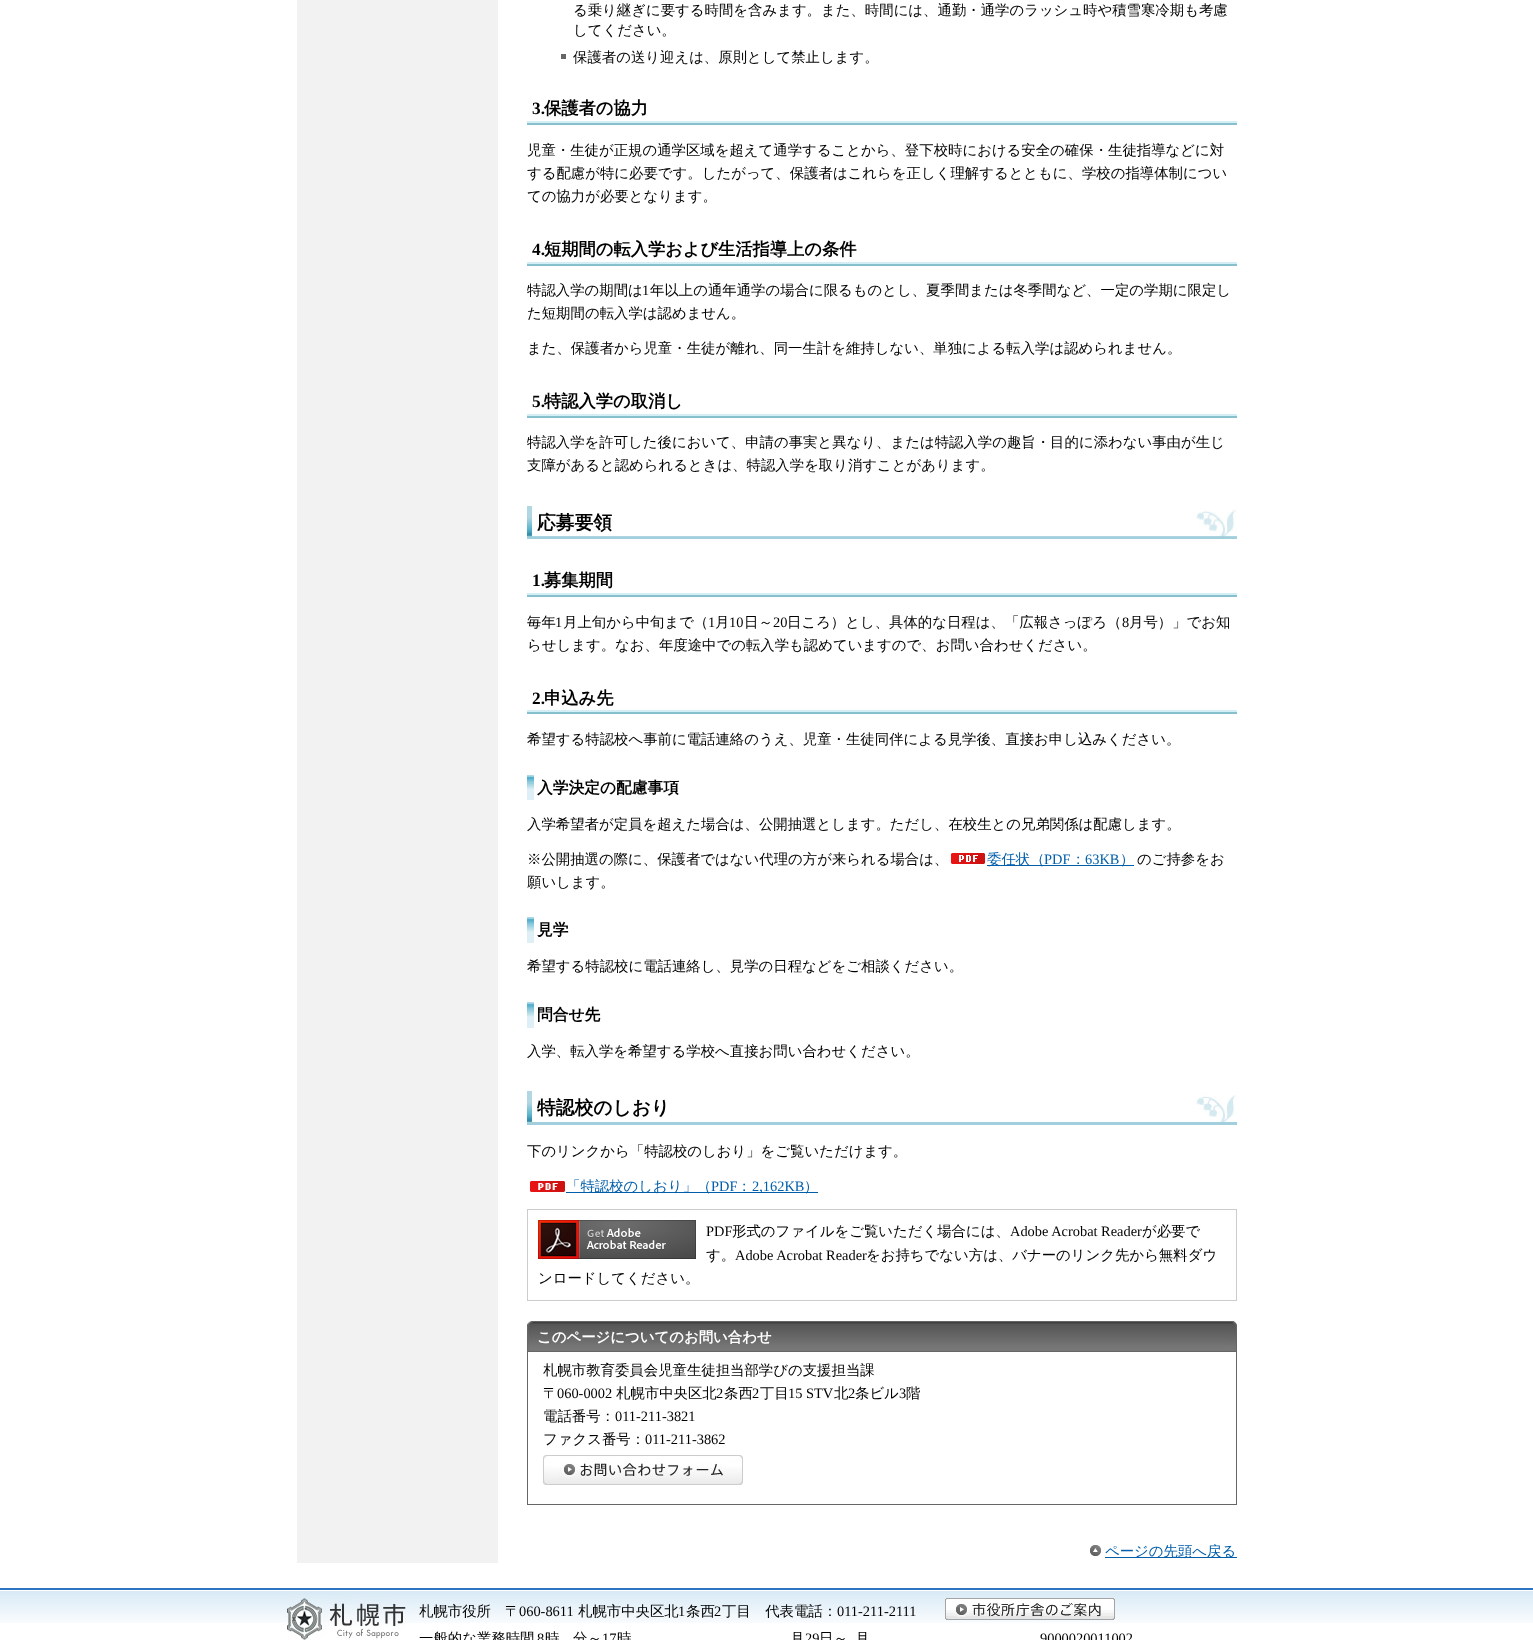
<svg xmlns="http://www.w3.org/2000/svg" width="1533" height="1640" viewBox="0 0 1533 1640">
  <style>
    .t1 { font: 500 14.4px WenQuanYi Zen Hei; fill: #000; }
    .t2 { font: bold 17.25px Liberation Serif; fill: #000; }
    .t3 { font: bold 17.25px WenQuanYi Zen Hei; fill: #000; }
    .t4 { font: 14.4px Liberation Serif; fill: #000; }
    .t5 { font: bold 18.75px WenQuanYi Zen Hei; fill: #000; }
    .t6 { font: bold 15.75px WenQuanYi Zen Hei; fill: #000; }
    .t7 { font: 500 14.4px WenQuanYi Zen Hei; fill: #005eaa; }
    .t8 { font: 14.4px Liberation Serif; fill: #005eaa; }
    .t9 { font: bold 14.4px WenQuanYi Zen Hei; fill: #fff; }
  </style>
  <rect width="100%" height="100%" fill="#fff"/>
  <rect x="297" y="0" width="201" height="1563" fill="#f2f2f2"/>
  <text x="573" y="15" class="t1">る乗り継ぎに要する時間を含みます。また、時間には、通勤・通学のラッシュ時や積雪寒冷期も考慮</text>
  <text x="573" y="35" class="t1">してください。</text>
  <rect x="561" y="54" width="5" height="5" fill="#666"/>
  <text x="573" y="62" class="t1">保護者の送り迎えは、原則として禁止します。</text>
  <image x="527" y="121" width="710" height="4" href="images/1.png"/>
  <text x="532" y="114" class="t2">3.</text>
  <text x="544" y="114" class="t3">保護者の協力</text>
  <text x="527" y="155" class="t1">児童・生徒が正規の通学区域を超えて通学することから、登下校時における安全の確保・生徒指導などに対</text>
  <text x="527" y="178" class="t1">する配慮が特に必要です。したがって、保護者はこれらを正しく理解するとともに、学校の指導体制につい</text>
  <text x="527" y="201" class="t1">ての協力が必要となります。</text>
  <image x="527" y="262" width="710" height="4" href="images/1.png"/>
  <text x="532" y="255" class="t2">4.</text>
  <text x="544" y="255" class="t3">短期間の転入学および生活指導上の条件</text>
  <text x="527" y="295" class="t1">特認入学の期間は</text>
  <text x="642" y="295" class="t4">1</text>
  <text x="650" y="295" class="t1">年以上の通年通学の場合に限るものとし、夏季間または冬季間など、一定の学期に限定し</text>
  <text x="527" y="318" class="t1">た短期間の転入学は認めません。</text>
  <text x="527" y="353" class="t1">また、保護者から児童・生徒が離れ、同一生計を維持しない、単独による転入学は認められません。</text>
  <image x="527" y="414" width="710" height="4" href="images/1.png"/>
  <text x="532" y="407" class="t2">5.</text>
  <text x="544" y="407" class="t3">特認入学の取消し</text>
  <text x="527" y="447" class="t1">特認入学を許可した後において、申請の事実と異なり、または特認入学の趣旨・目的に添わない事由が生じ</text>
  <text x="527" y="470" class="t1">支障があると認められるときは、特認入学を取り消すことがあります。</text>
  <image x="527" y="506" width="710" height="33" href="images/2.png"/>
  <text x="537" y="529" class="t5">応募要領</text>
  <image x="527" y="593" width="710" height="4" href="images/1.png"/>
  <text x="532" y="586" class="t2">1.</text>
  <text x="544" y="586" class="t3">募集期間</text>
  <text x="527" y="627" class="t1">毎年</text>
  <text x="555" y="627" class="t4">1</text>
  <text x="563" y="627" class="t1">月上旬から中旬まで（</text>
  <text x="708" y="627" class="t4">1</text>
  <text x="715" y="627" class="t1">月</text>
  <text x="729" y="627" class="t4">10</text>
  <text x="744" y="627" class="t1">日～</text>
  <text x="773" y="627" class="t4">20</text>
  <text x="787" y="627" class="t1">日ころ）とし、具体的な日程は、「広報さっぽろ（</text>
  <text x="1122" y="627" class="t4">8</text>
  <text x="1129" y="627" class="t1">月号）」でお知</text>
  <text x="527" y="650" class="t1">らせします。なお、年度途中での転入学も認めていますので、お問い合わせください。</text>
  <image x="527" y="710" width="710" height="4" href="images/1.png"/>
  <text x="532" y="704" class="t2">2.</text>
  <text x="544" y="704" class="t3">申込み先</text>
  <text x="527" y="744" class="t1">希望する特認校へ事前に電話連絡のうえ、児童・生徒同伴による見学後、直接お申し込みください。</text>
  <image x="527" y="775" width="7" height="25" href="images/3.png"/>
  <text x="537" y="793" class="t6">入学決定の配慮事項</text>
  <text x="527" y="829" class="t1">入学希望者が定員を超えた場合は、公開抽選とします。ただし、在校生との兄弟関係は配慮します。</text>
  <text x="527" y="864" class="t1">※公開抽選の際に、保護者ではない代理の方が来られる場合は、</text>
  <image x="951" y="853" width="34" height="11" href="images/4.png"/>
  <rect x="987" y="865" width="147" height="1" fill="#005eaa"/>
  <text x="987" y="864" class="t7">委任状（</text>
  <text x="1044" y="864" class="t8">PDF</text>
  <text x="1071" y="864" class="t7">：</text>
  <text x="1085" y="864" class="t8">63KB</text>
  <text x="1120" y="864" class="t7">）</text>
  <text x="1137" y="864" class="t1">のご持参をお</text>
  <text x="527" y="887" class="t1">願いします。</text>
  <image x="527" y="917" width="7" height="26" href="images/5.png"/>
  <text x="537" y="935" class="t6">見学</text>
  <text x="527" y="971" class="t1">希望する特認校に電話連絡し、見学の日程などをご相談ください。</text>
  <image x="527" y="1002" width="7" height="26" href="images/5.png"/>
  <text x="537" y="1020" class="t6">問合せ先</text>
  <text x="527" y="1056" class="t1">入学、転入学を希望する学校へ直接お問い合わせください。</text>
  <image x="527" y="1091" width="710" height="34" href="images/6.png"/>
  <text x="537" y="1114" class="t5">特認校のしおり</text>
  <text x="527" y="1156" class="t1">下のリンクから「特認校のしおり」をご覧いただけます。</text>
  <image x="530" y="1181" width="35" height="11" href="images/7.png"/>
  <rect x="566" y="1192" width="252" height="1" fill="#005eaa"/>
  <text x="566" y="1191" class="t7">「特認校のしおり」（</text>
  <text x="711" y="1191" class="t8">PDF</text>
  <text x="737" y="1191" class="t7">：</text>
  <text x="752" y="1191" class="t8">2,162KB</text>
  <text x="804" y="1191" class="t7">）</text>
  <rect x="527.5" y="1209.5" width="709" height="91" fill="none" stroke="#ccc"/>
  <image x="538" y="1220" width="158" height="39" href="images/8.png"/>
  <text x="706" y="1236" class="t4">PDF</text>
  <text x="732" y="1236" class="t1">形式のファイルをご覧いただく場合には、</text>
  <text x="1010" y="1236" class="t4">Adobe Acrobat Reader</text>
  <text x="1142" y="1236" class="t1">が必要で</text>
  <text x="706" y="1260" class="t1">す。</text>
  <text x="735" y="1260" class="t4">Adobe Acrobat Reader</text>
  <text x="866" y="1260" class="t1">をお持ちでない方は、バナーのリンク先から無料ダウ</text>
  <text x="538" y="1283" class="t1">ンロードしてください。</text>
  <image x="533" y="1321" width="704" height="30" href="images/9.png"/>
  <image x="527" y="1321" width="6" height="30" href="images/10.png"/>
  <text x="537" y="1342" class="t9">このページについてのお問い合わせ</text>
  <rect x="527.5" y="1351.5" width="709" height="153" fill="none" stroke="#666"/>
  <text x="543" y="1375" class="t1">札幌市教育委員会児童生徒担当部学びの支援担当課</text>
  <text x="543" y="1398" class="t1">〒</text>
  <text x="557" y="1398" class="t4">060-0002</text>
  <text x="616" y="1398" class="t1">札幌市中央区北</text>
  <text x="716" y="1398" class="t4">2</text>
  <text x="724" y="1398" class="t1">条西</text>
  <text x="752" y="1398" class="t4">2</text>
  <text x="760" y="1398" class="t1">丁目</text>
  <text x="788" y="1398" class="t4">15 STV</text>
  <text x="834" y="1398" class="t1">北</text>
  <text x="848" y="1398" class="t4">2</text>
  <text x="855" y="1398" class="t1">条ビル</text>
  <text x="899" y="1398" class="t4">3</text>
  <text x="906" y="1398" class="t1">階</text>
  <text x="543" y="1421" class="t1">電話番号：</text>
  <text x="615" y="1421" class="t4">011-211-3821</text>
  <text x="543" y="1444" class="t1">ファクス番号：</text>
  <text x="645" y="1444" class="t4">011-211-3862</text>
  <image x="543" y="1455" width="200" height="30" href="images/11.png"/>
  <image x="1090" y="1545" width="11" height="11" href="images/12.png"/>
  <rect x="1105" y="1557" width="132" height="1" fill="#005eaa"/>
  <text x="1105" y="1556" class="t7">ページの先頭へ戻る</text>
  <image x="0" y="1591" width="1533" height="32" href="images/13.png"/>
  <rect x="0" y="1588" width="1533" height="2" fill="#2d76bf"/>
  <image x="287" y="1598" width="119" height="42" href="images/14.png"/>
  <text x="419" y="1616" class="t1">札幌市役所</text>
  <text x="505" y="1616" class="t1">〒</text>
  <text x="519" y="1616" class="t4">060-8611</text>
  <text x="578" y="1616" class="t1">札幌市中央区北</text>
  <text x="678" y="1616" class="t4">1</text>
  <text x="686" y="1616" class="t1">条西</text>
  <text x="714" y="1616" class="t4">2</text>
  <text x="722" y="1616" class="t1">丁目　代表電話：</text>
  <text x="837" y="1616" class="t4">011-211-2111</text>
  <image x="945" y="1598" width="170" height="22" href="images/15.png"/>
  <text x="419" y="1643" class="t1">一般的な業務時間</text>
  <text x="537" y="1643" class="t4">8</text>
  <text x="545" y="1643" class="t1">時</text>
  <text x="573" y="1643" class="t1">分～</text>
  <text x="602" y="1643" class="t4">17</text>
  <text x="617" y="1643" class="t1">時</text>
  <text x="790" y="1643" class="t1">月</text>
  <text x="805" y="1643" class="t4">29</text>
  <text x="819" y="1643" class="t1">日～</text>
  <text x="855" y="1643" class="t1">月</text>
  <text x="1040" y="1643" class="t4">9000020011002</text>
</svg>
